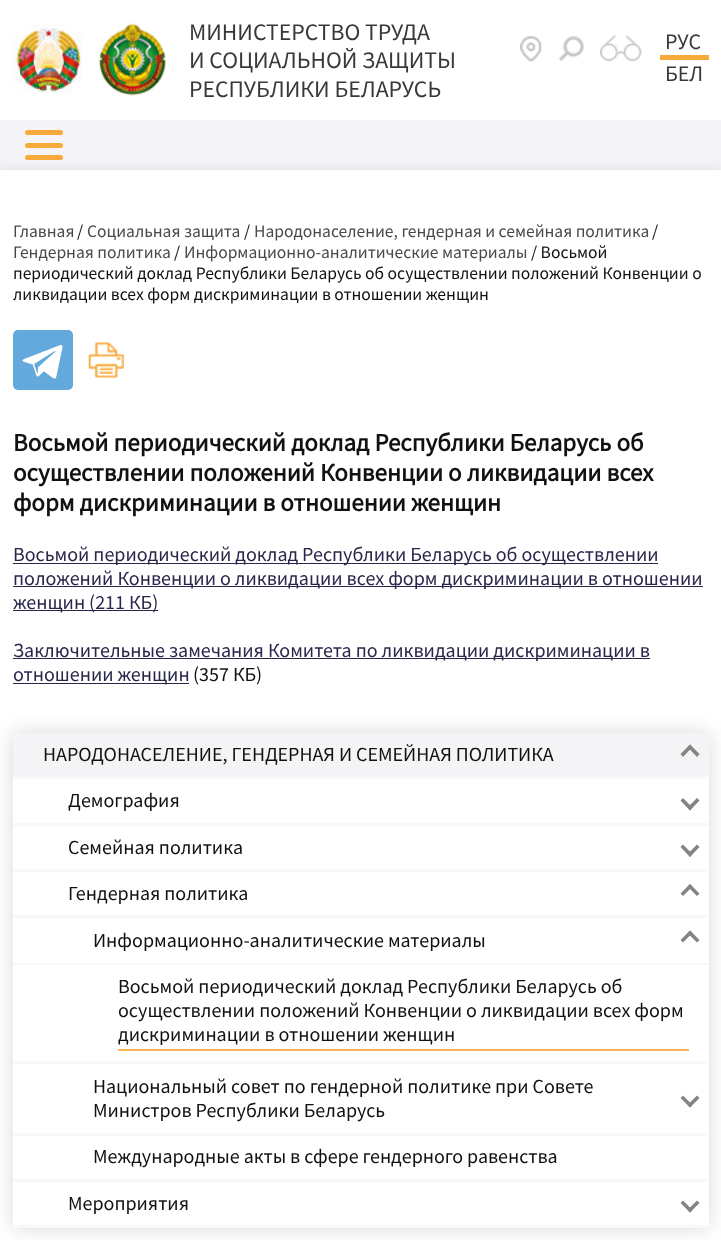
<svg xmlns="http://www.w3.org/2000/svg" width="721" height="1240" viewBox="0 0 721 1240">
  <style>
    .t1 { font: 23.75px Source Sans Pro; fill: #393838; }
    .t2 { font: 22px Source Sans Pro; fill: #393838; }
    .t3 { font: 17.5px Source Sans Pro; fill: #494949; }
    .t4 { font: 17.5px Source Sans Pro; fill: #111; }
    .t5 { font: bold 25px Source Sans Pro; fill: #111; }
    .t6 { font: 20px Source Sans Pro; fill: #28274b; }
    .t7 { font: 20px Source Sans Pro; fill: #111; }
  </style>
  <rect width="100%" height="100%" fill="#fff"/>
  <image x="12" y="23" width="71" height="71" href="images/1.png"/>
  <image x="98" y="23" width="69" height="73" href="images/2.png"/>
  <text x="189" y="40" class="t1">МИНИСТЕРСТВО ТРУДА</text>
  <text x="189" y="68" class="t1">И СОЦИАЛЬНОЙ ЗАЩИТЫ</text>
  <text x="189" y="97" class="t1">РЕСПУБЛИКИ БЕЛАРУСЬ</text>
  <image x="520" y="36" width="22" height="26" href="images/3.png"/>
  <image x="558" y="36" width="26" height="26" href="images/4.png"/>
  <image x="600" y="35" width="42" height="27" href="images/5.png"/>
  <rect x="660" y="55" width="49" height="5" fill="#f7aa3b"/>
  <text x="665" y="49" class="t2">РУС</text>
  <text x="665" y="81" class="t2">БЕЛ</text>
  <rect x="0" y="120" width="721" height="50" fill="#f4f4f6"/>
  <rect x="25" y="143" width="38" height="5" rx="2.5" fill="#f7a93c"/>
  <rect x="25" y="130" width="38" height="5" rx="2.5" fill="#f7a93c"/>
  <rect x="0" y="170" width="721" height="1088" fill="#00000017" filter="blur(6px)"/>
  <rect x="25" y="155" width="38" height="5" rx="2.5" fill="#f7a93c"/>
  <rect x="0" y="170" width="721" height="1070" fill="#fff"/>
  <text x="13" y="237" class="t3">Главная</text>
  <text x="77" y="237" class="t4">/</text>
  <text x="87" y="237" class="t3">Социальная защита</text>
  <text x="244" y="237" class="t4">/</text>
  <text x="254" y="237" class="t3">Народонаселение, гендерная и семейная политика</text>
  <text x="652" y="237" class="t4">/</text>
  <text x="13" y="258" class="t3">Гендерная политика</text>
  <text x="174" y="258" class="t4">/</text>
  <text x="184" y="258" class="t3">Информационно-аналитические материалы</text>
  <text x="531" y="258" class="t4">/ Восьмой</text>
  <text x="13" y="279" class="t4">периодический доклад Республики Беларусь об осуществлении положений Конвенции о</text>
  <text x="13" y="300" class="t4">ликвидации всех форм дискриминации в отношении женщин</text>
  <rect x="13" y="330" width="60" height="60" rx="5" fill="#64a9dc"/>
  <image x="22" y="345" width="41" height="34" href="images/6.png"/>
  <image x="88" y="342" width="36" height="36" href="images/7.png"/>
  <text x="13" y="451" class="t5">Восьмой периодический доклад Республики Беларусь об</text>
  <text x="13" y="481" class="t5">осуществлении положений Конвенции о ликвидации всех</text>
  <text x="13" y="511" class="t5">форм дискриминации в отношении женщин</text>
  <rect x="13" y="563" width="645" height="1" fill="#28274b"/>
  <text x="13" y="561" class="t6">Восьмой периодический доклад Республики Беларусь об осуществлении</text>
  <rect x="13" y="586" width="690" height="1" fill="#28274b"/>
  <text x="13" y="585" class="t6">положений Конвенции о ликвидации всех форм дискриминации в отношении</text>
  <rect x="13" y="610" width="145" height="1" fill="#28274b"/>
  <text x="13" y="609" class="t6">женщин (211 КБ)</text>
  <rect x="13" y="658" width="637" height="1" fill="#28274b"/>
  <text x="13" y="657" class="t6">Заключительные замечания Комитета по ликвидации дискриминации в</text>
  <rect x="13" y="683" width="176" height="1" fill="#28274b"/>
  <text x="13" y="681" class="t6">отношении женщин</text>
  <text x="193" y="681" class="t7">(357 КБ)</text>
  <rect x="13" y="733" width="696" height="495" fill="#00000026" filter="blur(10px)"/>
  <rect x="13" y="733" width="696" height="43" fill="#f4f4f6"/>
  <rect x="13" y="776" width="696" height="3" fill="#f8f8f9"/>
  <text x="43" y="761" class="t7">НАРОДОНАСЕЛЕНИЕ, ГЕНДЕРНАЯ И СЕМЕЙНАЯ ПОЛИТИКА</text>
  <path d="M683 757L680.5 754L690 744.5L692.5 747Z" fill="#848484"/>
  <path d="M697 757L687.5 747L690 744.5L699.5 754Z" fill="#848484"/>
  <rect x="13" y="779" width="696" height="446" fill="#fff"/>
  <rect x="13" y="823" width="696" height="3" fill="#f8f8f9"/>
  <text x="68" y="807" class="t7">Демография</text>
  <path d="M697 798L699.5 800.5L690 810.5L687.5 807.5Z" fill="#848484"/>
  <path d="M683 798L692.5 807.5L690 810.5L680.5 800.5ZM697 844.5L699.5 847L690 857L687.5 854Z" fill="#848484"/>
  <rect x="13" y="869" width="696" height="3" fill="#f8f8f9"/>
  <text x="68" y="854" class="t7">Семейная политика</text>
  <path d="M683 844.5L692.5 854L690 857L680.5 847ZM683 896L680.5 893.5L690 884L692.5 886.5Z" fill="#848484"/>
  <rect x="13" y="915" width="696" height="3" fill="#f8f8f9"/>
  <text x="68" y="900" class="t7">Гендерная политика</text>
  <path d="M697 896L687.5 886.5L690 884L699.5 893.5ZM683 942.5L680.5 940L690 930.5L692.5 933Z" fill="#848484"/>
  <rect x="13" y="963" width="696" height="2" fill="#f8f8f9"/>
  <text x="93" y="947" class="t7">Информационно-аналитические материалы</text>
  <path d="M697 942.5L687.5 933L690 930.5L699.5 940Z" fill="#848484"/>
  <rect x="13" y="1061" width="696" height="3" fill="#f8f8f9"/>
  <rect x="118" y="1049" width="571" height="2" fill="#f8b555"/>
  <text x="118" y="993" class="t7">Восьмой периодический доклад Республики Беларусь об</text>
  <text x="118" y="1017" class="t7">осуществлении положений Конвенции о ликвидации всех форм</text>
  <text x="118" y="1041" class="t7">дискриминации в отношении женщин</text>
  <rect x="13" y="1133" width="696" height="3" fill="#f8f8f9"/>
  <text x="93" y="1093" class="t7">Национальный совет по гендерной политике при Совете</text>
  <text x="93" y="1117" class="t7">Министров Республики Беларусь</text>
  <path d="M697 1095.5L699.5 1098L690 1107.5L687.5 1105Z" fill="#848484"/>
  <path d="M683 1095.5L692.5 1105L690 1107.5L680.5 1098Z" fill="#848484"/>
  <rect x="13" y="1179" width="696" height="3" fill="#f8f8f9"/>
  <text x="93" y="1163" class="t7">Международные акты в сфере гендерного равенства</text>
  <rect x="13" y="1225" width="696" height="3" fill="#f8f8f9"/>
  <text x="68" y="1210" class="t7">Мероприятия</text>
  <path d="M697 1200.5L699.5 1203L690 1212.5L687.5 1210Z" fill="#848484"/>
  <path d="M683 1200.5L692.5 1210L690 1212.5L680.5 1203Z" fill="#848484"/>
</svg>
